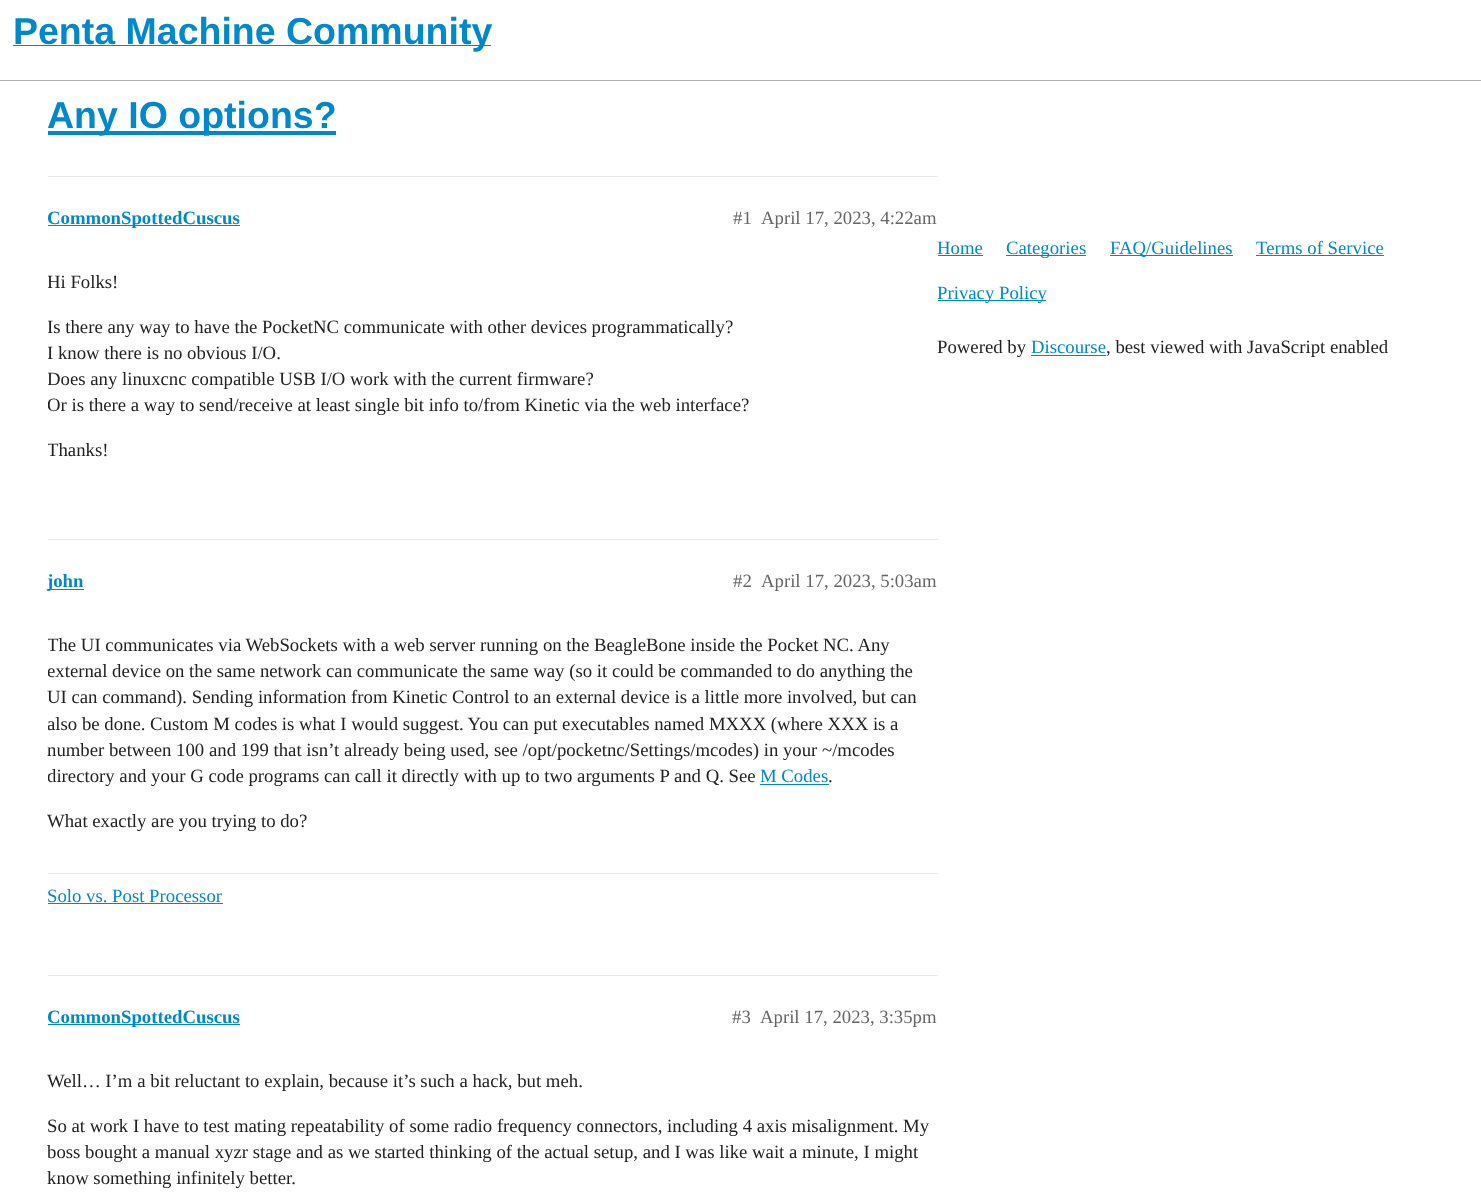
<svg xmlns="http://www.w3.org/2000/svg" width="1481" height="1196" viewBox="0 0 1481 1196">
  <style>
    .t1 { font: bold 37.5px Liberation Sans; fill: #08c; }
    .t2 { font: bold 18.75px Liberation Serif; fill: #08c; }
    .t3 { font: 18.75px Liberation Serif; fill: #666; }
    .t4 { font: 18.75px Liberation Serif; fill: #222; }
    .t5 { font: 18.75px Liberation Serif; fill: #08c; }
  </style>
  <defs>
    <clipPath id="clip1"><rect x="48" y="250" width="890" height="233"/></clipPath>
    <clipPath id="clip2"><rect x="48" y="614" width="890" height="240"/></clipPath>
  </defs>
  <rect width="100%" height="100%" fill="#fff"/>
  <rect x="0" y="80" width="1481" height="1" fill="#afafaf"/>
  <rect x="13" y="45" width="478" height="1" fill="#08c"/>
  <text x="13" y="44" class="t1">Penta Machine Community</text>
  <rect x="48" y="131" width="288" height="4" fill="#08c"/>
  <text x="47" y="128" class="t1">Any IO options?</text>
  <rect x="48" y="176" width="890" height="1" fill="#e9e9e9"/>
  <rect x="48" y="225" width="192" height="1" fill="#08c"/>
  <text x="47" y="224" class="t2">CommonSpottedCuscus</text>
  <text x="733" y="224" class="t3">#1</text>
  <text x="761" y="224" class="t3">April 17, 2023, 4:22am</text>
  <g clip-path="url(#clip1)">
    <text x="47" y="288" class="t4">Hi Folks!</text>
    <text x="47" y="333" class="t4">Is there any way to have the PocketNC communicate with other devices programmatically?</text>
    <text x="47" y="359" class="t4">I know there is no obvious I/O.</text>
    <text x="47" y="385" class="t4">Does any linuxcnc compatible USB I/O work with the current firmware?</text>
    <text x="47" y="411" class="t4">Or is there a way to send/receive at least single bit info to/from Kinetic via the web interface?</text>
    <text x="47" y="456" class="t4">Thanks!</text>
  </g>
  <rect x="48" y="539" width="890" height="1" fill="#e9e9e9"/>
  <rect x="48" y="589" width="36" height="1" fill="#08c"/>
  <text x="47" y="587" class="t2">john</text>
  <text x="733" y="587" class="t3">#2</text>
  <text x="761" y="587" class="t3">April 17, 2023, 5:03am</text>
  <g clip-path="url(#clip2)">
    <text x="47" y="651" class="t4">The UI communicates via WebSockets with a web server running on the BeagleBone inside the Pocket NC. Any</text>
    <text x="47" y="677" class="t4">external device on the same network can communicate the same way (so it could be commanded to do anything the</text>
  </g>
  <text x="47" y="703" class="t4">UI can command). Sending information from Kinetic Control to an external device is a little more involved, but can</text>
  <g clip-path="url(#clip2)">
    <text x="47" y="730" class="t4">also be done. Custom M codes is what I would suggest. You can put executables named MXXX (where XXX is a</text>
  </g>
  <text x="47" y="756" class="t4">number between 100 and 199 that isn’t already being used, see /opt/pocketnc/Settings/mcodes) in your ~/mcodes</text>
  <g clip-path="url(#clip2)">
    <text x="47" y="782" class="t4">directory and your G code programs can call it directly with up to two arguments P and Q. See</text>
  </g>
  <text x="760" y="782" class="t5">M Codes</text>
  <rect x="760" y="784" width="69" height="1" fill="#08c"/>
  <text x="828" y="782" class="t4">.</text>
  <text x="47" y="827" class="t4">What exactly are you trying to do?</text>
  <rect x="48" y="873" width="890" height="1" fill="#e9e9e9"/>
  <text x="47" y="902" class="t5">Solo vs. Post Processor</text>
  <rect x="48" y="903" width="175" height="1" fill="#08c"/>
  <rect x="48" y="975" width="890" height="1" fill="#e9e9e9"/>
  <rect x="48" y="1024" width="192" height="1" fill="#08c"/>
  <text x="47" y="1023" class="t2">CommonSpottedCuscus</text>
  <text x="732" y="1023" class="t3">#3</text>
  <text x="760" y="1023" class="t3">April 17, 2023, 3:35pm</text>
  <text x="47" y="1087" class="t4">Well… I’m a bit reluctant to explain, because it’s such a hack, but meh.</text>
  <text x="47" y="1132" class="t4">So at work I have to test mating repeatability of some radio frequency connectors, including 4 axis misalignment. My</text>
  <text x="47" y="1158" class="t4">boss bought a manual xyzr stage and as we started thinking of the actual setup, and I was like wait a minute, I might</text>
  <text x="47" y="1184" class="t4">know something infinitely better.</text>
  <text x="937" y="254" class="t5">Home</text>
  <rect x="938" y="255" width="45" height="1" fill="#08c"/>
  <rect x="1006" y="255" width="80" height="1" fill="#08c"/>
  <text x="1006" y="254" class="t5">Categories</text>
  <rect x="1110" y="255" width="123" height="1" fill="#08c"/>
  <text x="1110" y="254" class="t5">FAQ/Guidelines</text>
  <text x="1256" y="254" class="t5">Terms of Service</text>
  <rect x="1256" y="255" width="128" height="1" fill="#08c"/>
  <rect x="938" y="300" width="108" height="1" fill="#08c"/>
  <text x="937" y="299" class="t5">Privacy Policy</text>
  <text x="937" y="353" class="t4">Powered by</text>
  <text x="1031" y="353" class="t5">Discourse</text>
  <rect x="1031" y="355" width="75" height="1" fill="#08c"/>
  <text x="1106" y="353" class="t4">, best viewed with JavaScript enabled</text>
</svg>
